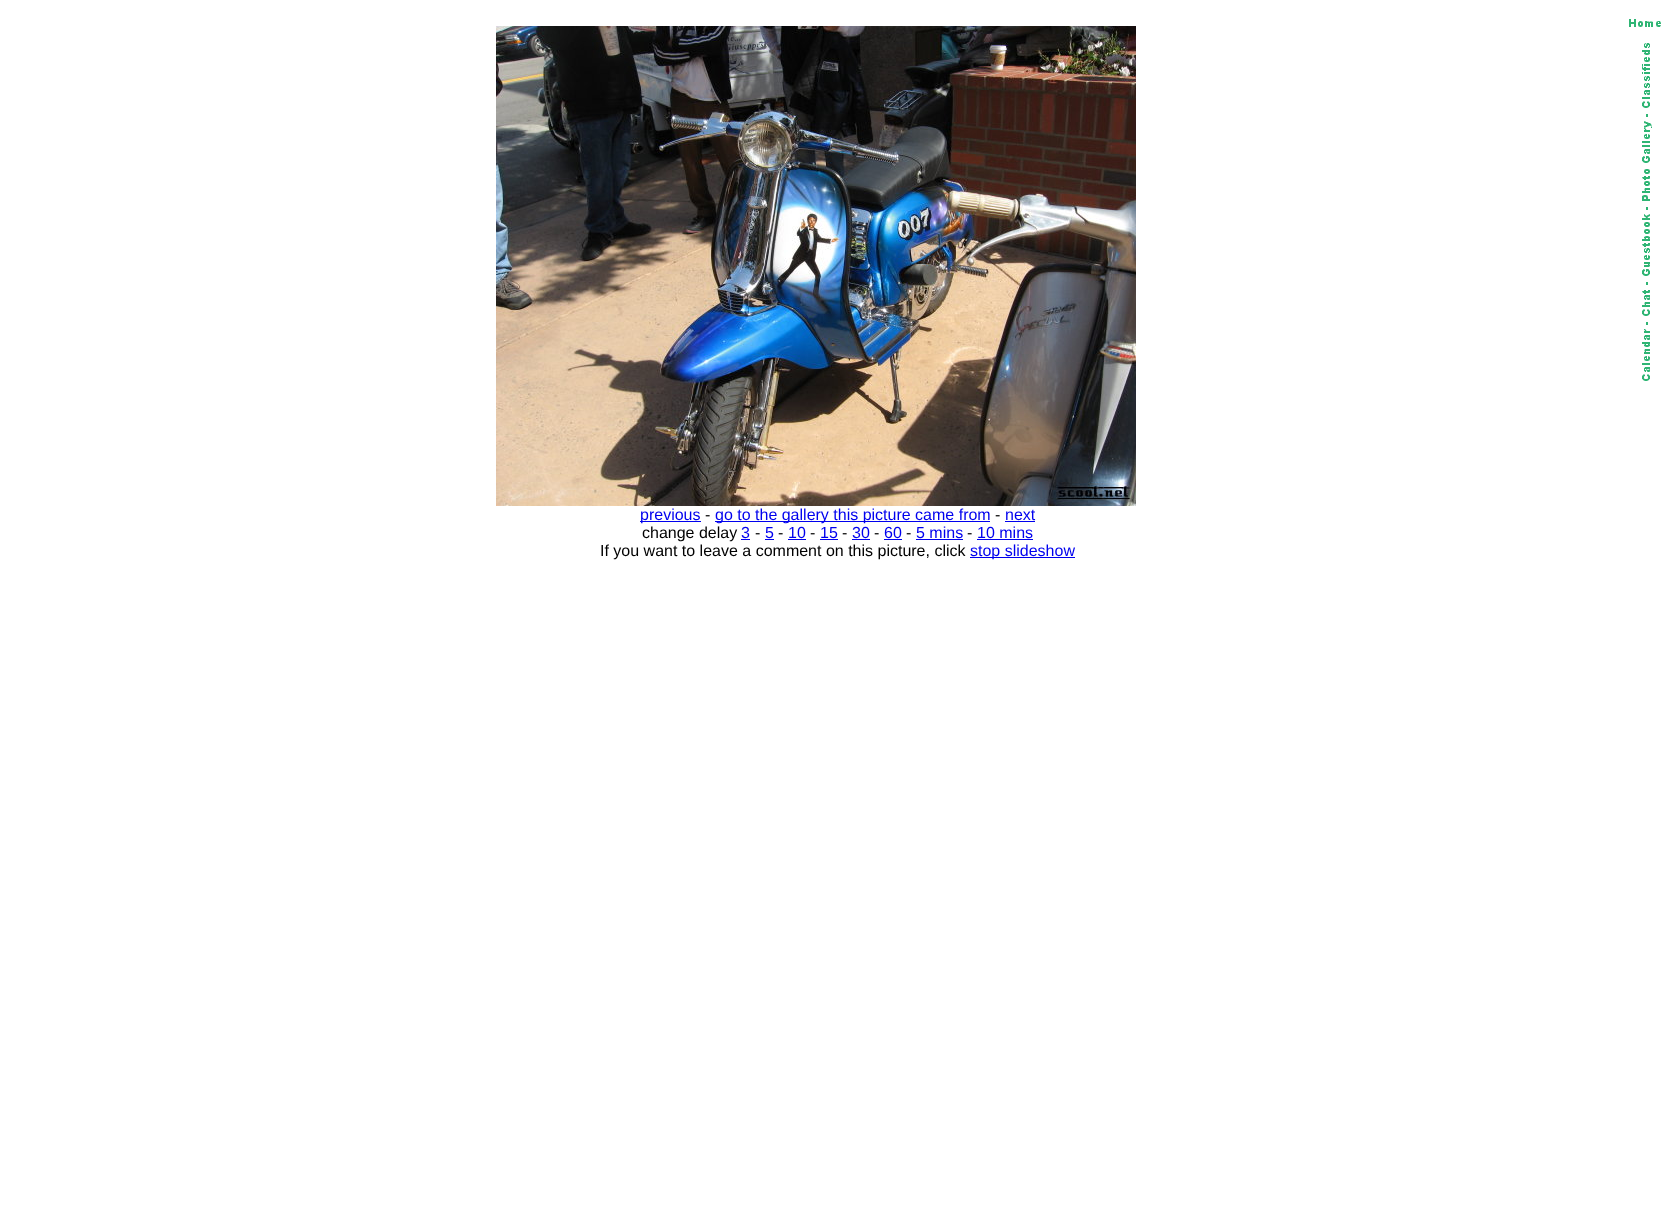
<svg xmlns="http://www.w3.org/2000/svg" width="1675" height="1219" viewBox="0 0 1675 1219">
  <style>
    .t1 { font: 16px Liberation Sans; fill: #00e; }
    .t2 { font: 16px Liberation Sans; fill: #000; }
  </style>
  <rect width="100%" height="100%" fill="#fff"/>
  <image x="1629" y="19" width="32" height="8" href="images/1.png"/>
  <image x="1642" y="43" width="10" height="338" href="images/2.png"/>
  <image x="496" y="26" width="640" height="480" href="images/3.png"/>
  <rect x="640" y="521" width="61" height="1" fill="#00e"/>
  <text x="640" y="520" class="t1">previous</text>
  <text x="705" y="520" class="t2">-</text>
  <rect x="715" y="521" width="275" height="1" fill="#00e"/>
  <text x="715" y="520" class="t1">go to the gallery this picture came from</text>
  <text x="995" y="520" class="t2">-</text>
  <text x="1005" y="520" class="t1">next</text>
  <rect x="1005" y="521" width="30" height="1" fill="#00e"/>
  <text x="642" y="538" class="t2">change delay</text>
  <text x="741" y="538" class="t1">3</text>
  <rect x="741" y="539" width="9" height="1" fill="#00e"/>
  <text x="755" y="538" class="t2">-</text>
  <text x="765" y="538" class="t1">5</text>
  <rect x="765" y="539" width="9" height="1" fill="#00e"/>
  <text x="778" y="538" class="t2">-</text>
  <text x="788" y="538" class="t1">10</text>
  <rect x="788" y="539" width="18" height="1" fill="#00e"/>
  <text x="810" y="538" class="t2">-</text>
  <text x="820" y="538" class="t1">15</text>
  <rect x="820" y="539" width="18" height="1" fill="#00e"/>
  <text x="842" y="538" class="t2">-</text>
  <text x="852" y="538" class="t1">30</text>
  <rect x="852" y="539" width="18" height="1" fill="#00e"/>
  <text x="874" y="538" class="t2">-</text>
  <text x="884" y="538" class="t1">60</text>
  <rect x="884" y="539" width="18" height="1" fill="#00e"/>
  <text x="906" y="538" class="t2">-</text>
  <text x="916" y="538" class="t1">5 mins</text>
  <rect x="916" y="539" width="47" height="1" fill="#00e"/>
  <text x="967" y="538" class="t2">-</text>
  <text x="977" y="538" class="t1">10 mins</text>
  <rect x="977" y="539" width="56" height="1" fill="#00e"/>
  <text x="600" y="556" class="t2">If you want to leave a comment on this picture, click</text>
  <rect x="970" y="557" width="105" height="1" fill="#00e"/>
  <text x="970" y="556" class="t1">stop slideshow</text>
</svg>
